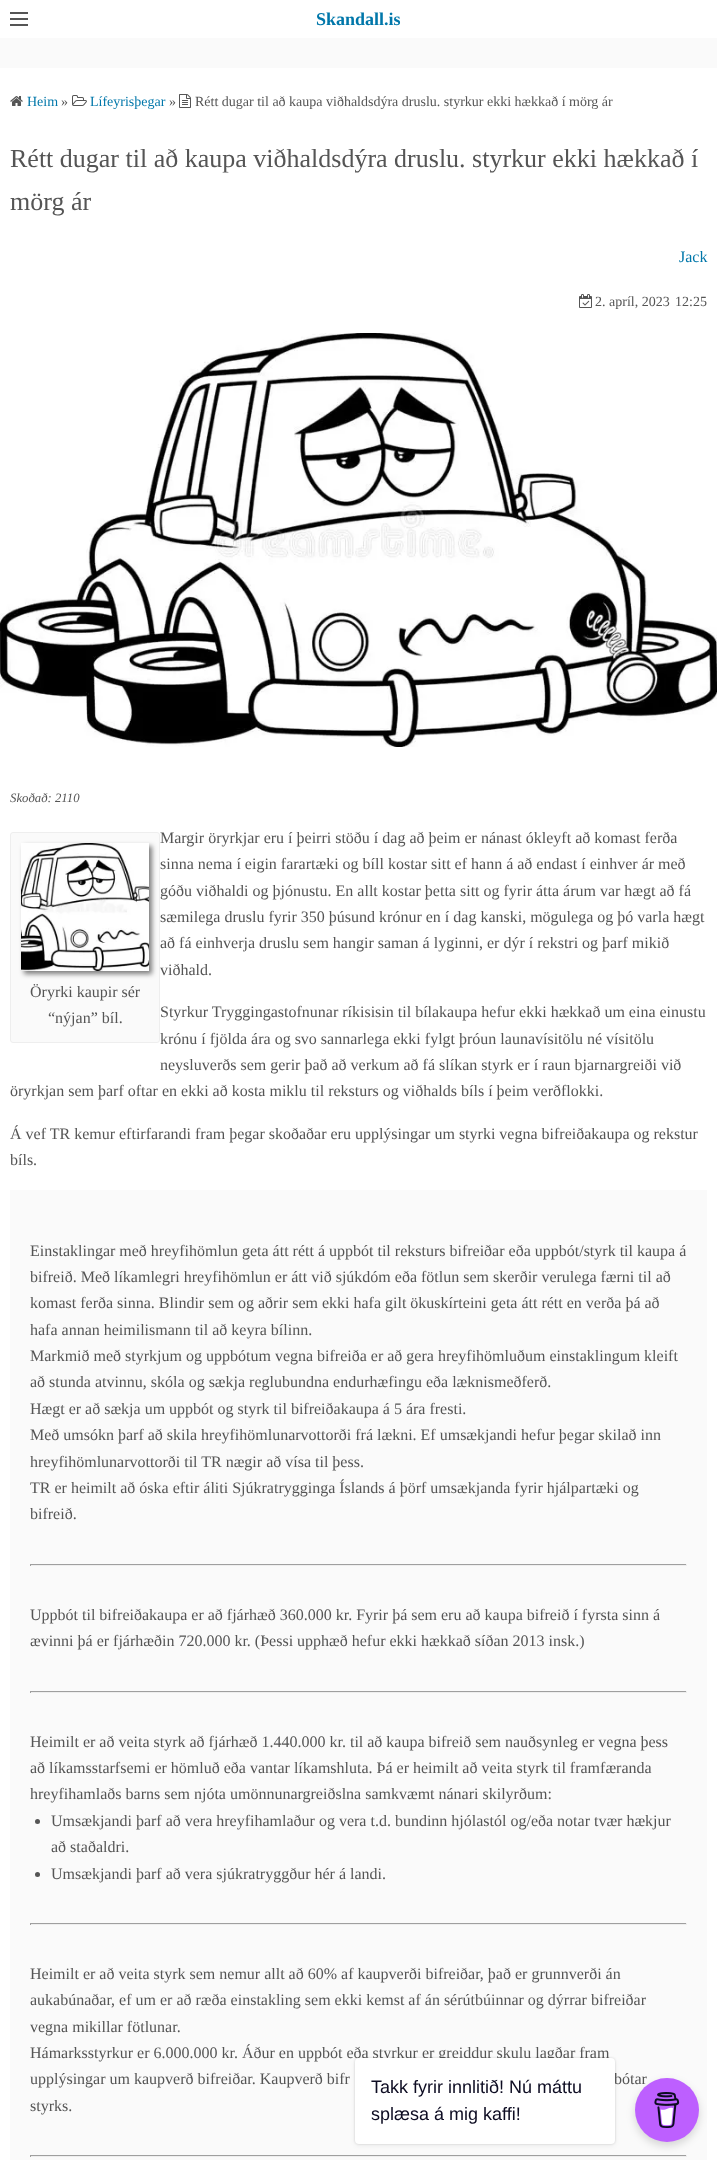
<svg xmlns="http://www.w3.org/2000/svg" width="717" height="2160" viewBox="0 0 717 2160">
  <style>
    .t1 { font: bold 18px Liberation Serif; fill: #07a; }
    .t2 { font: 14px Liberation Serif; fill: #07a; }
    .t3 { font: 14px Liberation Serif; fill: #555; }
    .t4 { font: 26px Liberation Serif; fill: #555; }
    .t5 { font: 16px Liberation Serif; fill: #07a; }
    .t6 { font: italic 12.75px Liberation Serif; fill: #555; }
    .t7 { font: 16px Liberation Serif; fill: #555; }
    .t8 { font: 18px Liberation Sans; fill: #0d0c22; }
  </style>
  <rect width="100%" height="100%" fill="#fafafa"/>
  <rect x="0" y="0" width="717" height="38" fill="#fff"/>
  <rect x="10" y="18" width="18" height="2" fill="#555"/>
  <rect x="10" y="12" width="18" height="2" fill="#555"/>
  <rect x="10" y="24" width="18" height="2" fill="#555"/>
  <text x="316" y="25" class="t1">Skandall.is</text>
  <rect x="0" y="68" width="717" height="2092" fill="#fff"/>
  <image x="10" y="96" width="13" height="10" href="images/1.png"/>
  <text x="27" y="106" class="t2">Heim</text>
  <text x="61" y="106" class="t3">»</text>
  <image x="72" y="95" width="15" height="11" href="images/2.png"/>
  <text x="90" y="106" class="t2">Lífeyrisþegar</text>
  <text x="169" y="106" class="t3">»</text>
  <image x="179" y="94" width="12" height="14" href="images/3.png"/>
  <text x="195" y="106" class="t3">Rétt dugar til að kaupa viðhaldsdýra druslu. styrkur ekki hækkað í mörg ár</text>
  <text x="10" y="167" class="t4">Rétt dugar til að kaupa viðhaldsdýra druslu. styrkur ekki hækkað í</text>
  <text x="10" y="210" class="t4">mörg ár</text>
  <text x="679" y="262" class="t5">Jack</text>
  <image x="579" y="294" width="13" height="14" href="images/4.png"/>
  <text x="595" y="306" class="t3">2. apríl, 2023</text>
  <text x="675" y="306" class="t3">12:25</text>
  <image x="0" y="333" width="717" height="414" href="images/5.png"/>
  <text x="10" y="802" class="t6">Skoðað: 2110</text>
  <rect x="10.5" y="832.5" width="149" height="210" rx="2.5" fill="#fafafa" stroke="#eee"/>
  <rect x="24" y="846" width="128" height="128" fill="#00000080" filter="blur(2.5px)"/>
  <text x="160" y="843" class="t7">Margir öryrkjar eru í þeirri stöðu í dag að þeim er nánast ókleyft að komast ferða</text>
  <text x="160" y="869" class="t7">sinna nema í eigin farartæki og bíll kostar sitt ef hann á að endast í einhver ár með</text>
  <text x="160" y="896" class="t7">góðu viðhaldi og þjónustu. En allt kostar þetta sitt og fyrir átta árum var hægt að fá</text>
  <text x="160" y="922" class="t7">sæmilega druslu fyrir 350 þúsund krónur en í dag kanski, mögulega og þó varla hægt</text>
  <text x="160" y="948" class="t7">að fá einhverja druslu sem hangir saman á lyginni, er dýr í rekstri og þarf mikið</text>
  <text x="160" y="975" class="t7">viðhald.</text>
  <image x="21" y="843" width="128" height="128" href="images/6.png"/>
  <text x="30" y="997" class="t7">Öryrki kaupir sér</text>
  <text x="48" y="1023" class="t7">“nýjan” bíl.</text>
  <text x="160" y="1017" class="t7">Styrkur Tryggingastofnunar ríkisisin til bílakaupa hefur ekki hækkað um eina einustu</text>
  <text x="160" y="1044" class="t7">krónu í fjölda ára og svo sannarlega ekki fylgt þróun launavísitölu né vísitölu</text>
  <text x="160" y="1070" class="t7">neysluverðs sem gerir það að verkum að fá slíkan styrk er í raun bjarnargreiði við</text>
  <text x="10" y="1096" class="t7">öryrkjan sem þarf oftar en ekki að kosta miklu til reksturs og viðhalds bíls í þeim verðflokki.</text>
  <text x="10" y="1139" class="t7">Á vef TR kemur eftirfarandi fram þegar skoðaðar eru upplýsingar um styrki vegna bifreiðakaupa og rekstur</text>
  <text x="10" y="1165" class="t7">bíls.</text>
  <rect x="10" y="1190" width="697" height="970" fill="#fafafa"/>
  <text x="30" y="1256" class="t7">Einstaklingar með hreyfihömlun geta átt rétt á uppbót til reksturs bifreiðar eða uppbót/styrk til kaupa á</text>
  <text x="30" y="1282" class="t7">bifreið. Með líkamlegri hreyfihömlun er átt við sjúkdóm eða fötlun sem skerðir verulega færni til að</text>
  <text x="30" y="1308" class="t7">komast ferða sinna. Blindir sem og aðrir sem ekki hafa gilt ökuskírteini geta átt rétt en verða þá að</text>
  <text x="30" y="1335" class="t7">hafa annan heimilismann til að keyra bílinn.</text>
  <text x="30" y="1361" class="t7">Markmið með styrkjum og uppbótum vegna bifreiða er að gera hreyfihömluðum einstaklingum kleift</text>
  <text x="30" y="1387" class="t7">að stunda atvinnu, skóla og sækja reglubundna endurhæfingu eða læknismeðferð.</text>
  <text x="30" y="1414" class="t7">Hægt er að sækja um uppbót og styrk til bifreiðakaupa á 5 ára fresti.</text>
  <text x="30" y="1440" class="t7">Með umsókn þarf að skila hreyfihömlunarvottorði frá lækni. Ef umsækjandi hefur þegar skilað inn</text>
  <text x="30" y="1467" class="t7">hreyfihömlunarvottorði til TR nægir að vísa til þess.</text>
  <text x="30" y="1493" class="t7">TR er heimilt að óska eftir áliti Sjúkratrygginga Íslands á þörf umsækjanda fyrir hjálpartæki og</text>
  <text x="30" y="1519" class="t7">bifreið.</text>
  <rect x="30" y="1564" width="657" height="1" fill="#9f9f9f"/>
  <rect x="686" y="1564" width="1" height="2" fill="#eee"/>
  <rect x="30" y="1565" width="657" height="1" fill="#eee"/>
  <rect x="30" y="1564" width="1" height="2" fill="#9f9f9f"/>
  <text x="30" y="1620" class="t7">Uppbót til bifreiðakaupa er að fjárhæð 360.000 kr. Fyrir þá sem eru að kaupa bifreið í fyrsta sinn á</text>
  <text x="30" y="1646" class="t7">ævinni þá er fjárhæðin 720.000 kr. (Þessi upphæð hefur ekki hækkað síðan 2013 insk.)</text>
  <rect x="30" y="1691" width="657" height="1" fill="#9f9f9f"/>
  <rect x="686" y="1691" width="1" height="2" fill="#eee"/>
  <rect x="30" y="1692" width="657" height="1" fill="#eee"/>
  <rect x="30" y="1691" width="1" height="2" fill="#9f9f9f"/>
  <text x="30" y="1747" class="t7">Heimilt er að veita styrk að fjárhæð 1.440.000 kr. til að kaupa bifreið sem nauðsynleg er vegna þess</text>
  <text x="30" y="1773" class="t7">að líkamsstarfsemi er hömluð eða vantar líkamshluta. Þá er heimilt að veita styrk til framfæranda</text>
  <text x="30" y="1799" class="t7">hreyfihamlaðs barns sem njóta umönnunargreiðslna samkvæmt nánari skilyrðum:</text>
  <circle cx="37.5" cy="1821.5" r="2.5" fill="#555"/>
  <text x="51" y="1826" class="t7">Umsækjandi þarf að vera hreyfihamlaður og vera t.d. bundinn hjólastól og/eða notar tvær hækjur</text>
  <text x="51" y="1852" class="t7">að staðaldri.</text>
  <circle cx="37.5" cy="1874.5" r="2.5" fill="#555"/>
  <text x="51" y="1879" class="t7">Umsækjandi þarf að vera sjúkratryggður hér á landi.</text>
  <rect x="30" y="1923" width="657" height="1" fill="#9f9f9f"/>
  <rect x="686" y="1923" width="1" height="2" fill="#eee"/>
  <rect x="30" y="1924" width="657" height="1" fill="#eee"/>
  <rect x="30" y="1923" width="1" height="2" fill="#9f9f9f"/>
  <text x="30" y="1979" class="t7">Heimilt er að veita styrk sem nemur allt að 60% af kaupverði bifreiðar, það er grunnverði án</text>
  <text x="30" y="2005" class="t7">aukabúnaðar, ef um er að ræða einstakling sem ekki kemst af án sérútbúinnar og dýrrar bifreiðar</text>
  <text x="30" y="2032" class="t7">vegna mikillar fötlunar.</text>
  <text x="30" y="2058" class="t7">Hámarksstyrkur er 6.000.000 kr. Áður en uppbót eða styrkur er greiddur skulu lagðar fram</text>
  <text x="30" y="2084" class="t7">upplýsingar um kaupverð bifreiðar. Kaupverð bifr</text>
  <text x="614" y="2084" class="t7">bótar</text>
  <text x="30" y="2111" class="t7">styrks.</text>
  <rect x="30" y="2155" width="657" height="1" fill="#9f9f9f"/>
  <rect x="686" y="2155" width="1" height="2" fill="#eee"/>
  <rect x="30" y="2156" width="657" height="1" fill="#eee"/>
  <rect x="30" y="2155" width="1" height="2" fill="#9f9f9f"/>
  <rect x="355" y="2058" width="260" height="86" rx="4" fill="#00000026" filter="blur(1px)"/>
  <rect x="355" y="2060" width="260" height="86" rx="4" fill="#0000000d" filter="blur(2.5px)"/>
  <rect x="355" y="2058" width="260" height="86" rx="4" fill="#fff"/>
  <text x="371" y="2093" class="t8">Takk fyrir innlitið! Nú máttu</text>
  <text x="371" y="2120" class="t8">splæsa á mig kaffi!</text>
  <rect x="635" y="2082" width="64" height="64" rx="32" fill="#00000026" filter="blur(4px)"/>
  <circle cx="667" cy="2110" r="32" fill="#bd5fff"/>
  <image x="654" y="2092" width="26" height="36" href="images/7.png"/>
</svg>
